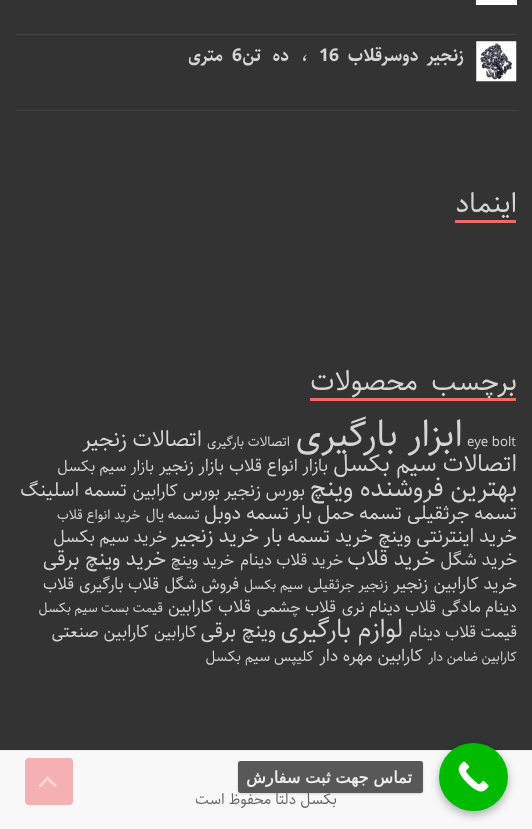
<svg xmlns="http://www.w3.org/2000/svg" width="532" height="829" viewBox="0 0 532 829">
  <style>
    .t1 { font: bold 17.5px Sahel; direction: rtl; fill: #d5d5d5; }
    .t2 { font: bold 17.5px Sahel; fill: #d5d5d5; }
    .t3 { font: 27.5px Sahel; direction: rtl; fill: #d5d5d5; }
    .t4 { font: 13.25px Sahel; fill: #d5d5d5; }
    .t5 { font: 36.5px Sahel; direction: rtl; fill: #d5d5d5; }
    .t6 { font: 13.25px Sahel; direction: rtl; fill: #d5d5d5; }
    .t7 { font: 21.75px Sahel; direction: rtl; fill: #d5d5d5; }
    .t8 { font: 23.25px Sahel; direction: rtl; fill: #d5d5d5; }
    .t9 { font: 17px Sahel; direction: rtl; fill: #d5d5d5; }
    .t10 { font: 15.5px Sahel; direction: rtl; fill: #d5d5d5; }
    .t11 { font: 25.25px Sahel; direction: rtl; fill: #d5d5d5; }
    .t12 { font: 18px Sahel; direction: rtl; fill: #d5d5d5; }
    .t13 { font: 19.25px Sahel; direction: rtl; fill: #d5d5d5; }
    .t14 { font: 14.5px Sahel; direction: rtl; fill: #d5d5d5; }
    .t15 { font: 20.5px Sahel; direction: rtl; fill: #d5d5d5; }
    .t16 { font: 21px Sahel; direction: rtl; fill: #d5d5d5; }
    .t17 { font: 16px Sahel; direction: rtl; fill: #d5d5d5; }
    .t18 { font: 20px Sahel; direction: rtl; fill: #d5d5d5; }
    .t19 { font: 15px Sahel; direction: rtl; fill: #666; }
    .t20 { font: bold 16.25px DejaVu Sans; direction: rtl; fill: #ececec; }
  </style>
  <defs>
    <clipPath id="clip1"><path d="M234 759H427V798H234ZM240.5 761H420.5C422 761 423 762 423 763.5V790.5C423 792 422 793 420.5 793H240.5C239 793 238 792 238 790.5V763.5C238 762 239 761 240.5 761Z" clip-rule="evenodd"/></clipPath>
  </defs>
  <rect width="100%" height="100%" fill="#333"/>
  <rect x="16" y="34" width="500" height="1" fill="#444"/>
  <rect x="476" y="0" width="41" height="5" fill="#fff"/>
  <rect x="16" y="110" width="500" height="1" fill="#444"/>
  <image x="476" y="41" width="41" height="41" href="images/1.png"/>
  <text x="464" y="61" word-spacing="4" class="t1">زنجیر دوسرقلاب</text>
  <text x="319" y="61" class="t2">16</text>
  <text x="308" y="61" class="t1">،</text>
  <text x="289" y="61" class="t1">ده</text>
  <text x="261" y="61" class="t1">تن</text>
  <text x="232" y="61" class="t2">6</text>
  <text x="223" y="61" class="t1">متری</text>
  <text x="517" y="212" class="t3">اینماد</text>
  <rect x="455" y="220" width="61" height="3" fill="#f16869"/>
  <rect x="310" y="398" width="206" height="3" fill="#f16869"/>
  <text x="517" y="390" word-spacing="6" class="t3">برچسب محصولات</text>
  <text x="467" y="446" class="t4">eye bolt</text>
  <text x="463" y="446" class="t5">ابزار بارگیری</text>
  <text x="290" y="446" class="t6">اتصالات بارگیری</text>
  <text x="202" y="446" class="t7">اتصالات زنجیر</text>
  <text x="517" y="471" class="t8">اتصالات سیم بکسل</text>
  <text x="328" y="471" class="t9">بازار انواع قلاب</text>
  <text x="224" y="471" class="t9">بازار زنجیر</text>
  <text x="154" y="471" class="t10">بازار سیم بکسل</text>
  <text x="517" y="496" class="t11">بهترین فروشنده وینچ</text>
  <text x="305" y="496" class="t12">بورس زنجیر</text>
  <text x="220" y="496" class="t9">بورس کارابین</text>
  <text x="127" y="496" class="t13">تسمه اسلینگ</text>
  <text x="517" y="519" class="t13">تسمه جرثقیلی</text>
  <text x="402" y="519" class="t13">تسمه حمل بار</text>
  <text x="289" y="519" class="t13">تسمه دوبل</text>
  <text x="200" y="519" class="t14">تسمه یال</text>
  <text x="140" y="519" class="t6">خرید انواع قلاب</text>
  <text x="517" y="542" class="t13">خرید اینترنتی وینچ</text>
  <text x="373" y="542" class="t13">خرید تسمه بار</text>
  <text x="259" y="542" class="t15">خرید زنجیر</text>
  <text x="167" y="542" class="t9">خرید سیم بکسل</text>
  <text x="517" y="565" class="t12">خرید شگل</text>
  <text x="435" y="565" class="t16">خرید قلاب</text>
  <text x="343" y="565" class="t17">خرید قلاب دینام</text>
  <text x="234" y="565" class="t17">خرید وینچ</text>
  <text x="166" y="565" class="t15">خرید وینچ برقی</text>
  <text x="517" y="589" class="t9">خرید کارابین</text>
  <text x="428" y="589" class="t9">زنجیر</text>
  <text x="388" y="589" class="t14">زنجیر جرثقیلی</text>
  <text x="303" y="589" class="t6">سیم بکسل</text>
  <text x="239" y="589" class="t17">فروش شگل</text>
  <text x="159" y="589" class="t17">قلاب بارگیری</text>
  <text x="74" y="589" class="t17">قلاب</text>
  <text x="517" y="612" class="t17">دینام مادگی</text>
  <text x="436" y="612" class="t17">قلاب دینام نری</text>
  <text x="336" y="612" class="t17">قلاب چشمی</text>
  <text x="251" y="612" class="t9">قلاب کارابین</text>
  <text x="163" y="612" class="t6">قیمت بست سیم بکسل</text>
  <text x="517" y="637" class="t17">قیمت قلاب دینام</text>
  <text x="403" y="637" class="t11">لوازم بارگیری</text>
  <text x="276" y="637" class="t18">وینچ برقی</text>
  <text x="197" y="637" class="t17">کارابین</text>
  <text x="149" y="637" class="t9">کارابین صنعتی</text>
  <text x="517" y="661" class="t6">کارابین ضامن دار</text>
  <text x="423" y="661" class="t9">کارابین مهره دار</text>
  <text x="314" y="661" class="t14">کلیپس سیم بکسل</text>
  <rect x="0" y="751" width="532" height="78" fill="#f8f8f8"/>
  <rect x="0" y="750" width="532" height="1" fill="#eaeaea"/>
  <text x="337" y="804" class="t19">بکسل دلتا محفوظ است</text>
  <rect x="25" y="758" width="48" height="47" rx="4" fill="#f1686980"/>
  <path d="M55 787.5L47.5 780L40.5 787.5L38.5 785.5L47.5 776L57 785.5Z" fill="#ffffff80"/>
  <rect x="439" y="746" width="69" height="69" rx="34.5" fill="#0000004d" filter="blur(4px)"/>
  <rect x="439" y="743" width="69" height="68" rx="34" fill="#0b0"/>
  <image x="458" y="761" width="31" height="31" href="images/2.png"/>
  <g clip-path="url(#clip1)">
    <rect x="238" y="763" width="185" height="31" rx="2.5" fill="#00000026" filter="blur(1px)"/>
  </g>
  <rect x="238" y="761" width="185" height="32" rx="2.5" fill="#464646e6"/>
  <text x="412" y="783" word-spacing="-0.5" class="t20">تماس جهت ثبت سفارش</text>
</svg>
